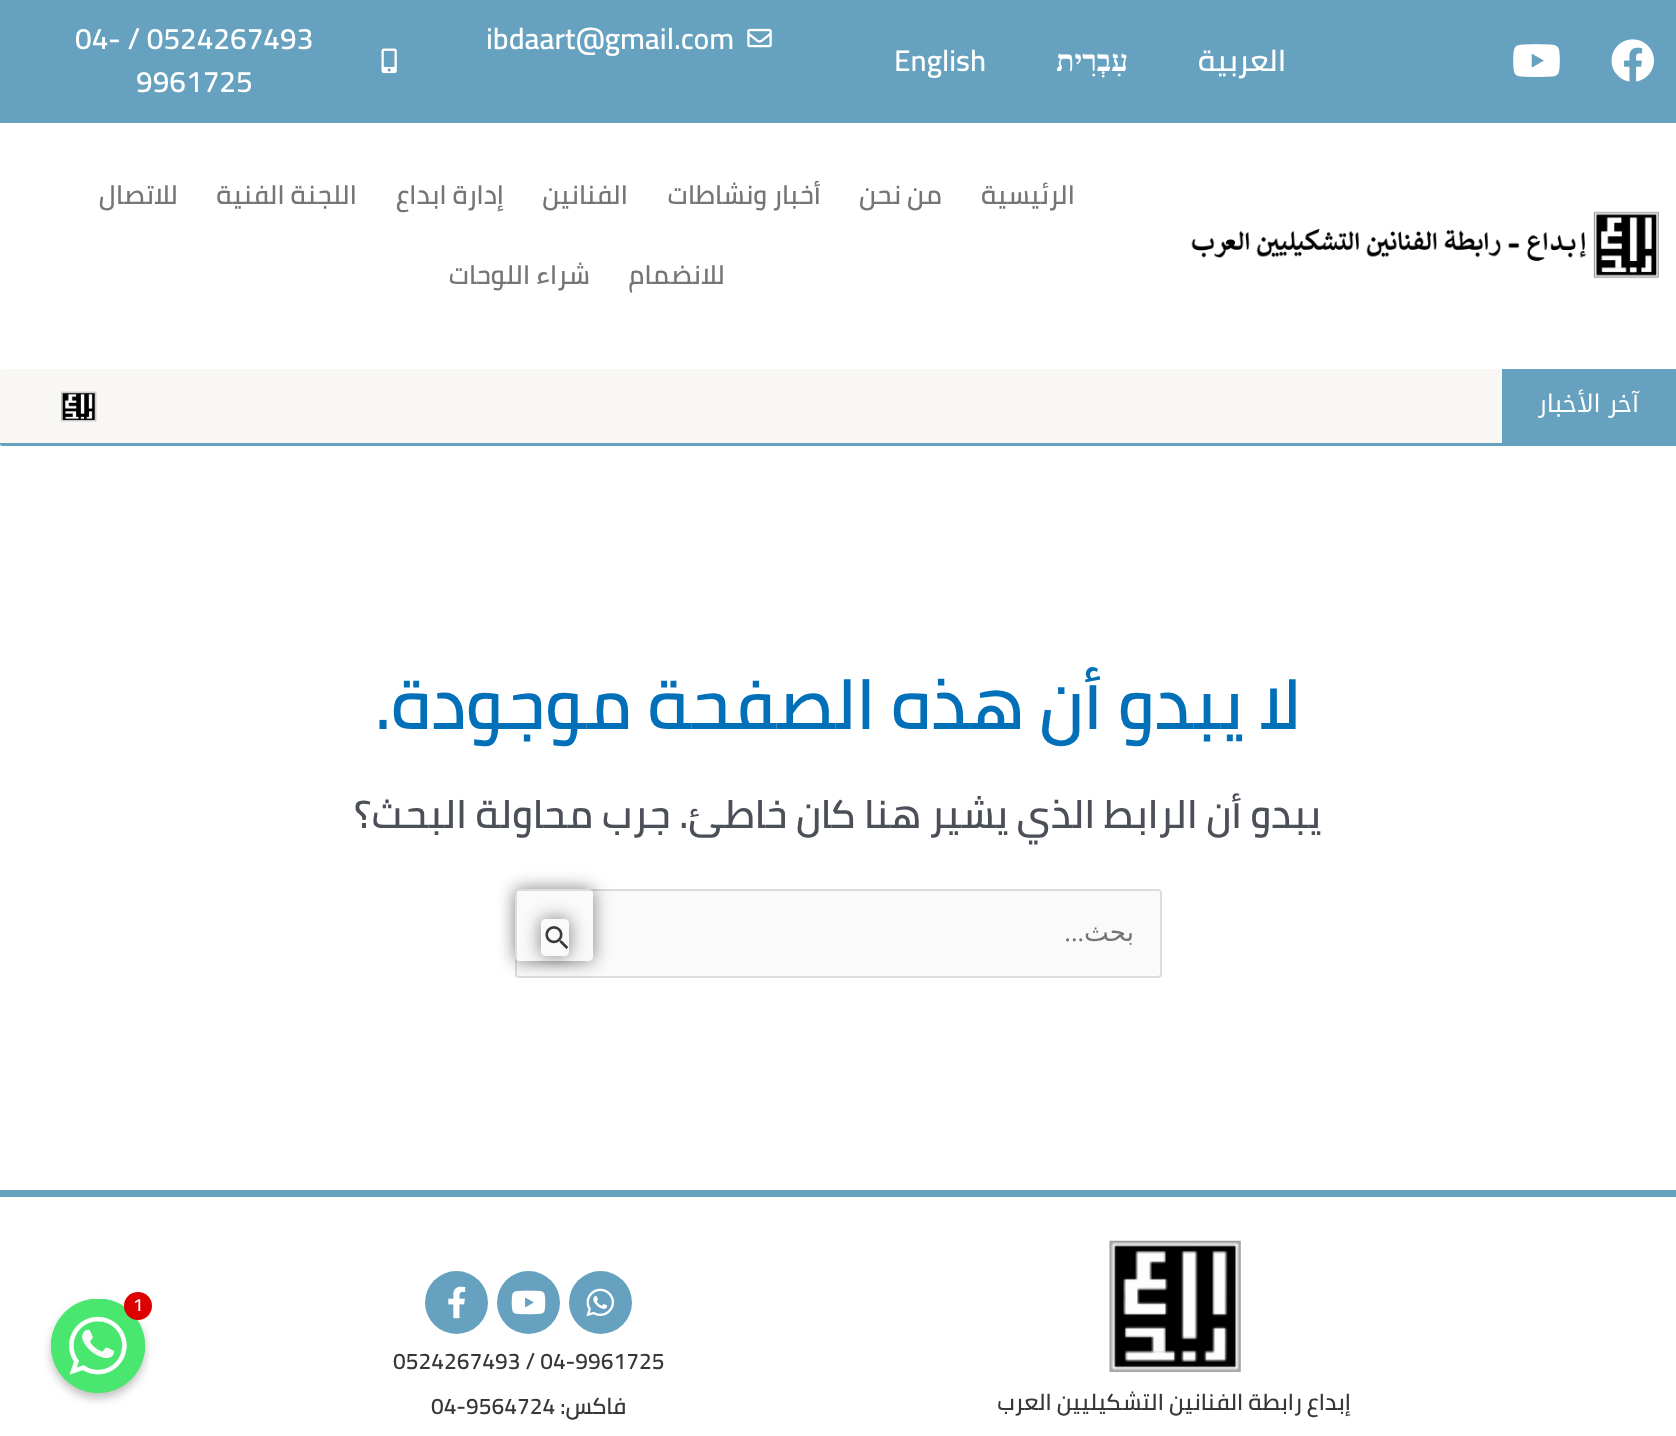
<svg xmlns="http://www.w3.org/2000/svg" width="1676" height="1436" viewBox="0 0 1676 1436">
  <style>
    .t1 { font: 600 29.75px Cairo; direction: rtl; fill: #fff; }
    .t2 { font: bold 29.75px Liberation Serif; direction: rtl; fill: #fff; }
    .t3 { font: 600 29.75px Cairo; fill: #fff; }
    .t4 { font: 600 26.25px Cairo; direction: rtl; fill: #757575; }
    .t5 { font: 24.5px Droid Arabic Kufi; direction: rtl; fill: #fff; }
    .t6 { font: 600 70px Cairo; direction: rtl; fill: #0170b9; }
    .t7 { font: 600 39.4px Cairo; direction: rtl; fill: #4b4f58; }
    .t8 { font: 26.25px DejaVu Sans; direction: rtl; fill: #757575; }
    .t9 { font: 26.25px Liberation Serif; direction: rtl; fill: #757575; }
    .t10 { font: 600 22.75px Cairo; direction: rtl; fill: #373737; }
    .t11 { font: 600 22.75px Cairo; fill: #373737; }
    .t12 { font: 600 18px Cairo; fill: #fff; }
  </style>
  <defs>
    <clipPath id="clip1"><path d="M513 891H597V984H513ZM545 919H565C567 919 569 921 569 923V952C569 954 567 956 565 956H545C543 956 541 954 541 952V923C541 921 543 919 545 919Z" clip-rule="evenodd"/></clipPath>
    <clipPath id="clip2"><path d="M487 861H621V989H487ZM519 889H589C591 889 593 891 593 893V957C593 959 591 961 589 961H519C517 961 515 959 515 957V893C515 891 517 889 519 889Z" clip-rule="evenodd"/></clipPath>
  </defs>
  <rect width="100%" height="100%" fill="#fff"/>
  <rect x="0" y="0" width="1676" height="123" fill="#66a1bf"/>
  <image x="1611" y="39" width="43" height="43" href="images/1.png"/>
  <image x="1513" y="44" width="47" height="33" href="images/2.png"/>
  <text x="1286" y="71" class="t1">العربية</text>
  <text x="1128" y="71" class="t2">עִבְרִית</text>
  <text x="894" y="71" class="t3">English</text>
  <image x="747" y="28" width="25" height="20" href="images/3.png"/>
  <text x="486" y="49" class="t3">ibdaart@gmail.com</text>
  <image x="381" y="48" width="16" height="26" href="images/4.png"/>
  <text x="75" y="49" class="t3">04- / 0524267493</text>
  <text x="136" y="92" class="t3">9961725</text>
  <image x="1191" y="211" width="468" height="68" href="images/5.png"/>
  <text x="1075" y="204" class="t4">الرئيسية</text>
  <text x="942" y="204" class="t4">من نحن</text>
  <text x="821" y="204" class="t4">أخبار ونشاطات</text>
  <text x="628" y="204" class="t4">الفنانين</text>
  <text x="504" y="204" class="t4">إدارة ابداع</text>
  <text x="357" y="204" class="t4">اللجنة الفنية</text>
  <text x="178" y="204" class="t4">للاتصال</text>
  <text x="725" y="284" class="t4">للانضمام</text>
  <text x="590" y="284" class="t4">شراء اللوحات</text>
  <rect x="0" y="369" width="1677" height="77" rx="2" fill="#f9f7f3"/>
  <path d="M1502 369H1675C1676 369 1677 370 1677 371V444C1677 445 1676 446 1675 446H1502Z" fill="#66a1bf"/>
  <text x="1639" y="412" class="t5">آخر الأخبار</text>
  <path d="M0 443H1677V444C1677 445 1676 446 1675 446H2C1 446 0 445 0 444Z" fill="#66a1bf"/>
  <image x="61" y="391" width="36" height="31" href="images/6.png"/>
  <text x="1301" y="729" class="t6">لا يبدو أن هذه الصفحة موجودة.</text>
  <text x="1321" y="828" class="t7">يبدو أن الرابط الذي يشير هنا كان خاطئ. جرب محاولة البحث؟</text>
  <rect x="516" y="890" width="645" height="87" rx="3" fill="#fafafa" stroke="#ddd" stroke-width="2"/>
  <text x="1134" y="941" class="t8">بحث</text>
  <text x="1084" y="941" class="t9">...</text>
  <g clip-path="url(#clip1)">
    <rect x="541" y="919" width="28" height="37" rx="4" fill="#00000080" filter="blur(9px)"/>
  </g>
  <image x="545" y="926" width="24" height="23" href="images/7.png"/>
  <g clip-path="url(#clip2)">
    <rect x="515" y="889" width="78" height="72" rx="4" fill="#00000080" filter="blur(9px)"/>
  </g>
  <rect x="0" y="1190" width="1676" height="7" fill="#66a1bf"/>
  <image x="1109" y="1240" width="132" height="132" href="images/8.png"/>
  <text x="1351" y="1410" class="t10">إبداع رابطة الفنانين التشكيليين العرب</text>
  <circle cx="600.5" cy="1302.5" r="31.5" fill="#66a1bf"/>
  <image x="586" y="1288" width="28" height="29" href="images/9.png"/>
  <circle cx="528.5" cy="1302.5" r="31.5" fill="#66a1bf"/>
  <image x="511" y="1290" width="35" height="25" href="images/10.png"/>
  <circle cx="456.5" cy="1302.5" r="31.5" fill="#66a1bf"/>
  <image x="448" y="1286" width="18" height="33" href="images/11.png"/>
  <text x="393" y="1369" class="t11">0524267493 / 04-9961725</text>
  <text x="626" y="1414" class="t10">فاكس:</text>
  <text x="431" y="1414" class="t11">04-9564724</text>
  <rect x="51" y="1304" width="94" height="94" rx="47" fill="#00000040" filter="blur(5px)"/>
  <circle cx="98" cy="1346" r="47" fill="#49e670"/>
  <image x="51" y="1299" width="94" height="94" href="images/12.png"/>
  <circle cx="138" cy="1306" r="14" fill="#d00"/>
  <text x="133" y="1311" class="t12">1</text>
</svg>
